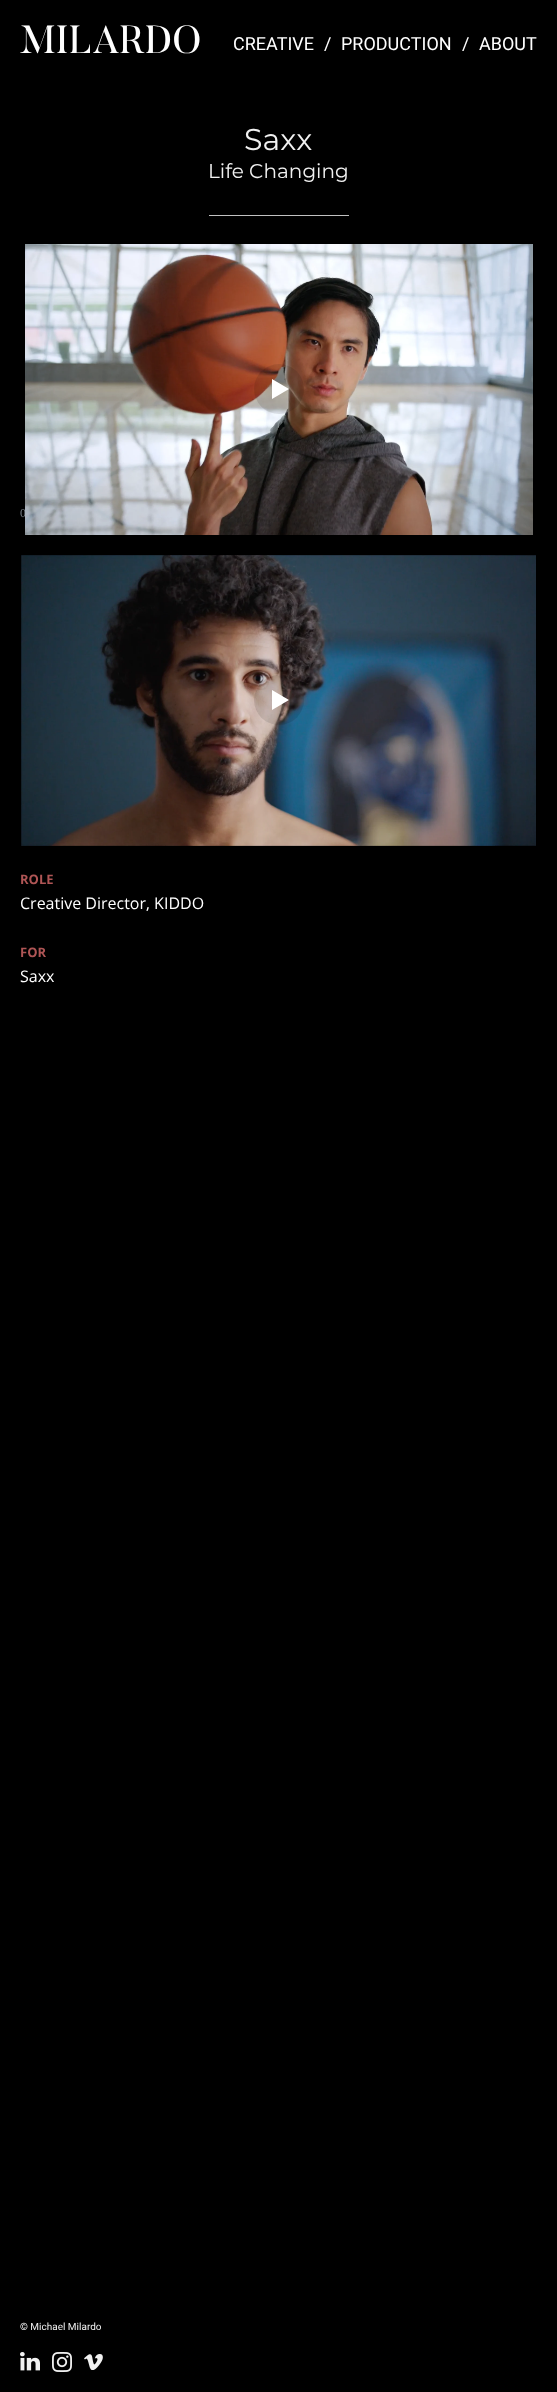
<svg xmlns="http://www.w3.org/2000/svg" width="557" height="2392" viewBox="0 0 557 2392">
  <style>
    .t1 { font: 39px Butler; fill: #fff; }
    .t2 { font: 18px Roboto; fill: #fff; }
    .t3 { font: 30px Montserrat; fill: #f1f1f1; }
    .t4 { font: 20px Montserrat; fill: #f1f1f1; }
    .t5 { font: 12px Liberation Serif; fill: #787f87; }
    .t6 { font: bold 13px Open Sans; fill: #af5555; }
    .t7 { font: 16px Open Sans; fill: #fff; }
    .t8 { font: 10px Roboto; fill: #f1f1f1; }
  </style>
  <rect width="100%" height="100%" fill="#000"/>
  <text x="20" y="53" class="t1">MILARDO</text>
  <text x="233" y="50" class="t2">CREATIVE</text>
  <text x="324" y="50" class="t2">/</text>
  <text x="341" y="50" class="t2">PRODUCTION</text>
  <text x="462" y="50" class="t2">/</text>
  <text x="479" y="50" class="t2">ABOUT</text>
  <text x="244" y="150" class="t3">Saxx</text>
  <text x="208" y="178" class="t4">Life Changing</text>
  <rect x="209" y="215" width="140" height="1" fill="#c1c1c1"/>
  <text x="20" y="517" class="t5">0</text>
  <image x="25" y="244" width="508" height="291" href="images/1.png"/>
  <circle cx="279" cy="389" r="25" fill="#0000001a"/>
  <path d="M289 389L272 399V379Z" fill="#fff"/>
  <image x="21" y="555" width="474" height="291" href="images/2.png"/>
  <image x="495" y="555" width="41" height="291" href="images/3.png"/>
  <circle cx="279" cy="700" r="25" fill="#0000001a"/>
  <path d="M289 700L272 710V690Z" fill="#fff"/>
  <text x="20" y="884" class="t6">ROLE</text>
  <text x="20" y="909" class="t7">Creative Director, KIDDO</text>
  <text x="20" y="957" class="t6">FOR</text>
  <text x="20" y="982" class="t7">Saxx</text>
  <text x="20" y="2330" class="t8">© Michael Milardo</text>
  <image x="20" y="2352" width="20" height="19" href="images/4.png"/>
  <image x="52" y="2352" width="20" height="20" href="images/5.png"/>
  <image x="84" y="2354" width="19" height="16" href="images/6.png"/>
</svg>
